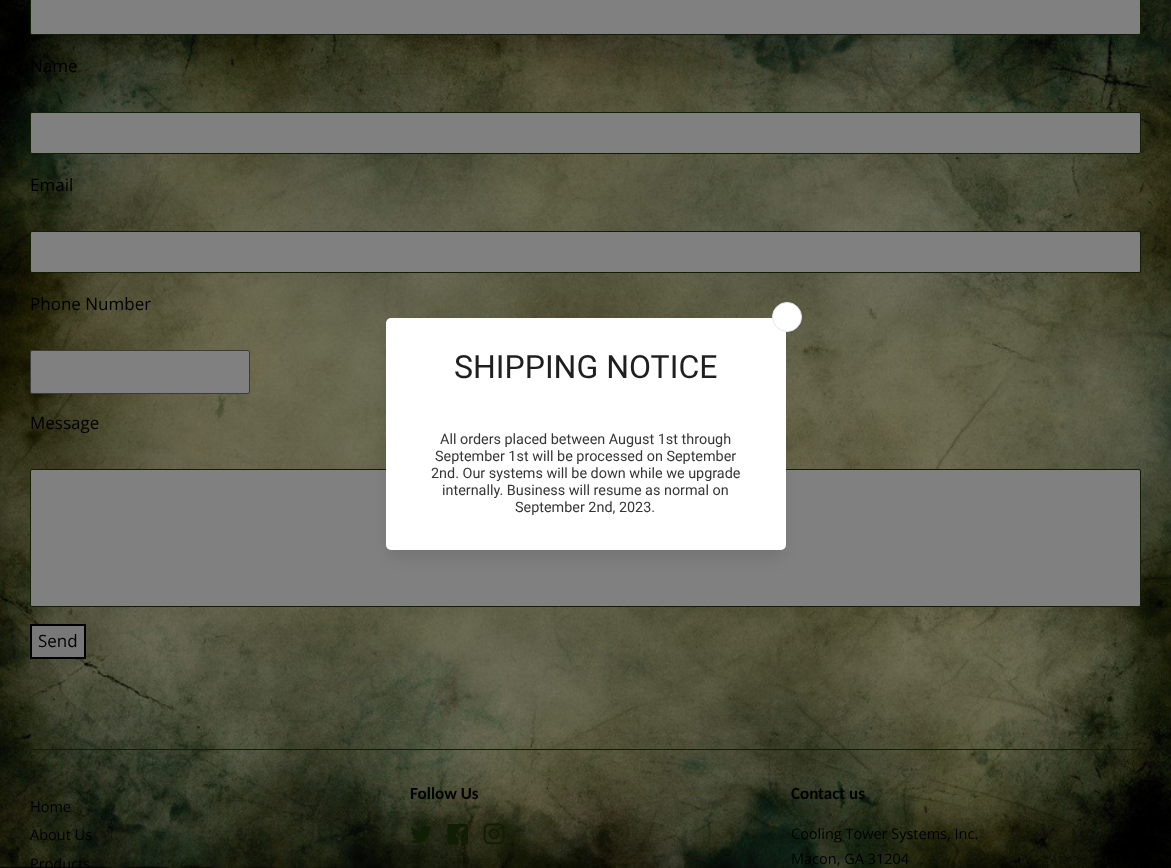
<svg xmlns="http://www.w3.org/2000/svg" width="1171" height="868" viewBox="0 0 1171 868">
  <style>
    .t1 { font: 17px Open Sans; fill: #000; }
    .t2 { font: 32px Roboto; fill: #1f1f1f; }
    .t3 { font: 14.4px Roboto; fill: #363636; }
    .t4 { font: 14.5px Open Sans; fill: #000; }
    .t5 { font: bold 17px Carlito; fill: #000; }
  </style>
  <defs>
    <clipPath id="clip1"><rect x="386" y="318" width="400" height="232"/></clipPath>
  </defs>
  <rect width="100%" height="100%" fill="#fff"/>
  <image x="0" y="0" width="1171" height="868" href="images/1.png"/>
  <rect x="30.5" y="-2.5" width="1110" height="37" rx="1.5" fill="#808080" stroke="#111e04"/>
  <text x="30" y="72" class="t1">Name</text>
  <rect x="30.5" y="112.5" width="1110" height="41" rx="1.5" fill="#808080" stroke="#111e04"/>
  <text x="30" y="191" class="t1">Email</text>
  <rect x="30.5" y="231.5" width="1110" height="41" rx="1.5" fill="#808080" stroke="#111e04"/>
  <text x="30" y="310" class="t1">Phone Number</text>
  <rect x="30.5" y="350.5" width="219" height="43" rx="1.5" fill="#808080" stroke="#3b3b3b"/>
  <text x="30" y="429" class="t1">Message</text>
  <rect x="30.5" y="469.5" width="1110" height="137" rx="1.5" fill="#808080" stroke="#111e04"/>
  <rect x="31" y="625" width="54" height="33" fill="#787878" stroke="#000" stroke-width="2"/>
  <text x="38" y="647" class="t1">Send</text>
  <rect x="30" y="749" width="1111" height="1" fill="#111e04"/>
  <rect x="389" y="331" width="394" height="226" rx="2" fill="#0000001a" filter="blur(7.5px)"/>
  <g clip-path="url(#clip1)">
    <rect x="389" y="321" width="394" height="226" rx="2" fill="#0000001f" filter="blur(10px)"/>
  </g>
  <rect x="386" y="318" width="400" height="232" rx="5" fill="#fff"/>
  <circle cx="787" cy="317" r="14.5" fill="#fff" stroke="#e2e8f0"/>
  <text x="454" y="378" class="t2">SHIPPING NOTICE</text>
  <text x="440" y="444" class="t3">All orders placed between August 1st through</text>
  <text x="435" y="461" class="t3">September 1st will be processed on September</text>
  <text x="431" y="478" class="t3">2nd. Our systems will be down while we upgrade</text>
  <text x="442" y="495" class="t3">internally. Business will resume as normal on</text>
  <text x="515" y="512" class="t3">September 2nd, 2023.</text>
  <text x="30" y="812" class="t4">Home</text>
  <text x="30" y="840" class="t4">About Us</text>
  <text x="30" y="869" class="t4">Products</text>
  <text x="410" y="799" class="t5">Follow Us</text>
  <image x="410" y="825" width="21" height="18" href="images/2.png"/>
  <image x="447" y="824" width="21" height="21" href="images/3.png"/>
  <image x="483" y="823" width="22" height="22" href="images/4.png"/>
  <text x="791" y="799" class="t5">Contact us</text>
  <text x="791" y="839" class="t4">Cooling Tower Systems, Inc.</text>
  <text x="791" y="864" class="t4">Macon, GA 31204</text>
</svg>
